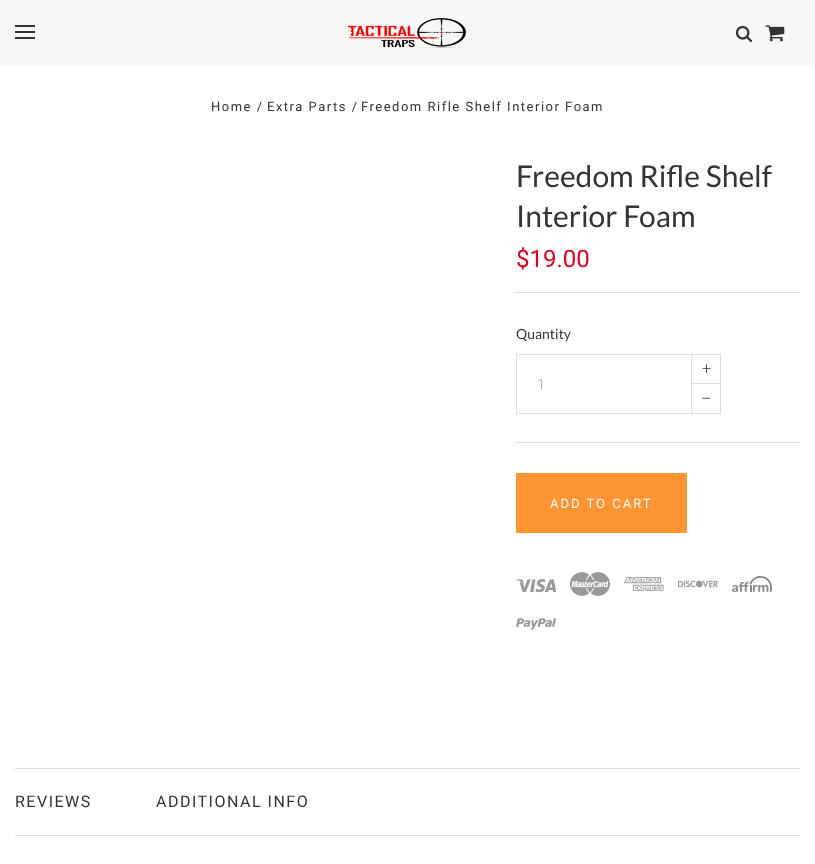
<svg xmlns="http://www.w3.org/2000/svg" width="815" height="864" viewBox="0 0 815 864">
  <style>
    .t1 { font: 13px Roboto; letter-spacing: 1.5px; fill: #333; }
    .t2 { font: 30px Lato; fill: #333; }
    .t3 { font: 24px Roboto; fill: #e2001c; }
    .t4 { font: 14px Lato; fill: #333; }
    .t5 { font: 300 16px Roboto; fill: #333; }
    .t6 { font: 300 14px Roboto; fill: #9b9b9b; }
    .t7 { font: 13px Roboto; letter-spacing: 2px; fill: #fff; }
    .t8 { font: 16px Roboto; letter-spacing: 1.5px; fill: #333; }
  </style>
  <rect width="100%" height="100%" fill="#fff"/>
  <rect x="0" y="0" width="815" height="66" fill="#f7f7f5"/>
  <rect x="15" y="31" width="20" height="2" fill="#333"/>
  <rect x="15" y="25" width="20" height="2" fill="#333"/>
  <rect x="15" y="37" width="20" height="2" fill="#333"/>
  <image x="348" y="18" width="118" height="30" href="images/1.png"/>
  <image x="735" y="25" width="18" height="18" href="images/2.png"/>
  <image x="765" y="25" width="20" height="17" href="images/3.png"/>
  <text x="211" y="111" class="t1">Home /</text>
  <text x="267" y="111" class="t1">Extra Parts /</text>
  <text x="361" y="111" class="t1">Freedom Rifle Shelf Interior Foam</text>
  <text x="516" y="187" class="t2">Freedom Rifle Shelf</text>
  <text x="516" y="227" class="t2">Interior Foam</text>
  <text x="516" y="267" class="t3">$19.00</text>
  <rect x="516" y="292" width="284" height="1" fill="#dededb"/>
  <text x="516" y="339" class="t4">Quantity</text>
  <rect x="691.5" y="354.5" width="29" height="29" fill="none" stroke="#dededb"/>
  <text x="702" y="374" class="t5">+</text>
  <rect x="516" y="354" width="175" height="1" fill="#dededb"/>
  <rect x="516" y="413" width="175" height="1" fill="#dededb"/>
  <rect x="516" y="354" width="1" height="60" fill="#dededb"/>
  <text x="537" y="389" class="t6">1</text>
  <rect x="720" y="384" width="1" height="30" fill="#dededb"/>
  <rect x="691" y="413" width="30" height="1" fill="#dededb"/>
  <rect x="691" y="384" width="1" height="30" fill="#dededb"/>
  <text x="701" y="404" class="t5">–</text>
  <rect x="516" y="442" width="284" height="1" fill="#dededb"/>
  <rect x="516" y="473" width="171" height="60" fill="#ff9433"/>
  <text x="550" y="508" class="t7">ADD TO CART</text>
  <image x="516" y="579" width="40" height="14" href="images/4.png"/>
  <image x="570" y="572" width="40" height="24" href="images/5.png"/>
  <image x="624" y="577" width="40" height="14" href="images/6.png"/>
  <image x="678" y="580" width="40" height="8" href="images/7.png"/>
  <image x="732" y="576" width="40" height="16" href="images/8.png"/>
  <image x="516" y="618" width="40" height="12" href="images/9.png"/>
  <rect x="15" y="768" width="785" height="1" fill="#dededb"/>
  <rect x="15" y="835" width="785" height="1" fill="#dededb"/>
  <text x="15" y="807" class="t8">REVIEWS</text>
  <text x="156" y="807" class="t8">ADDITIONAL INFO</text>
</svg>
